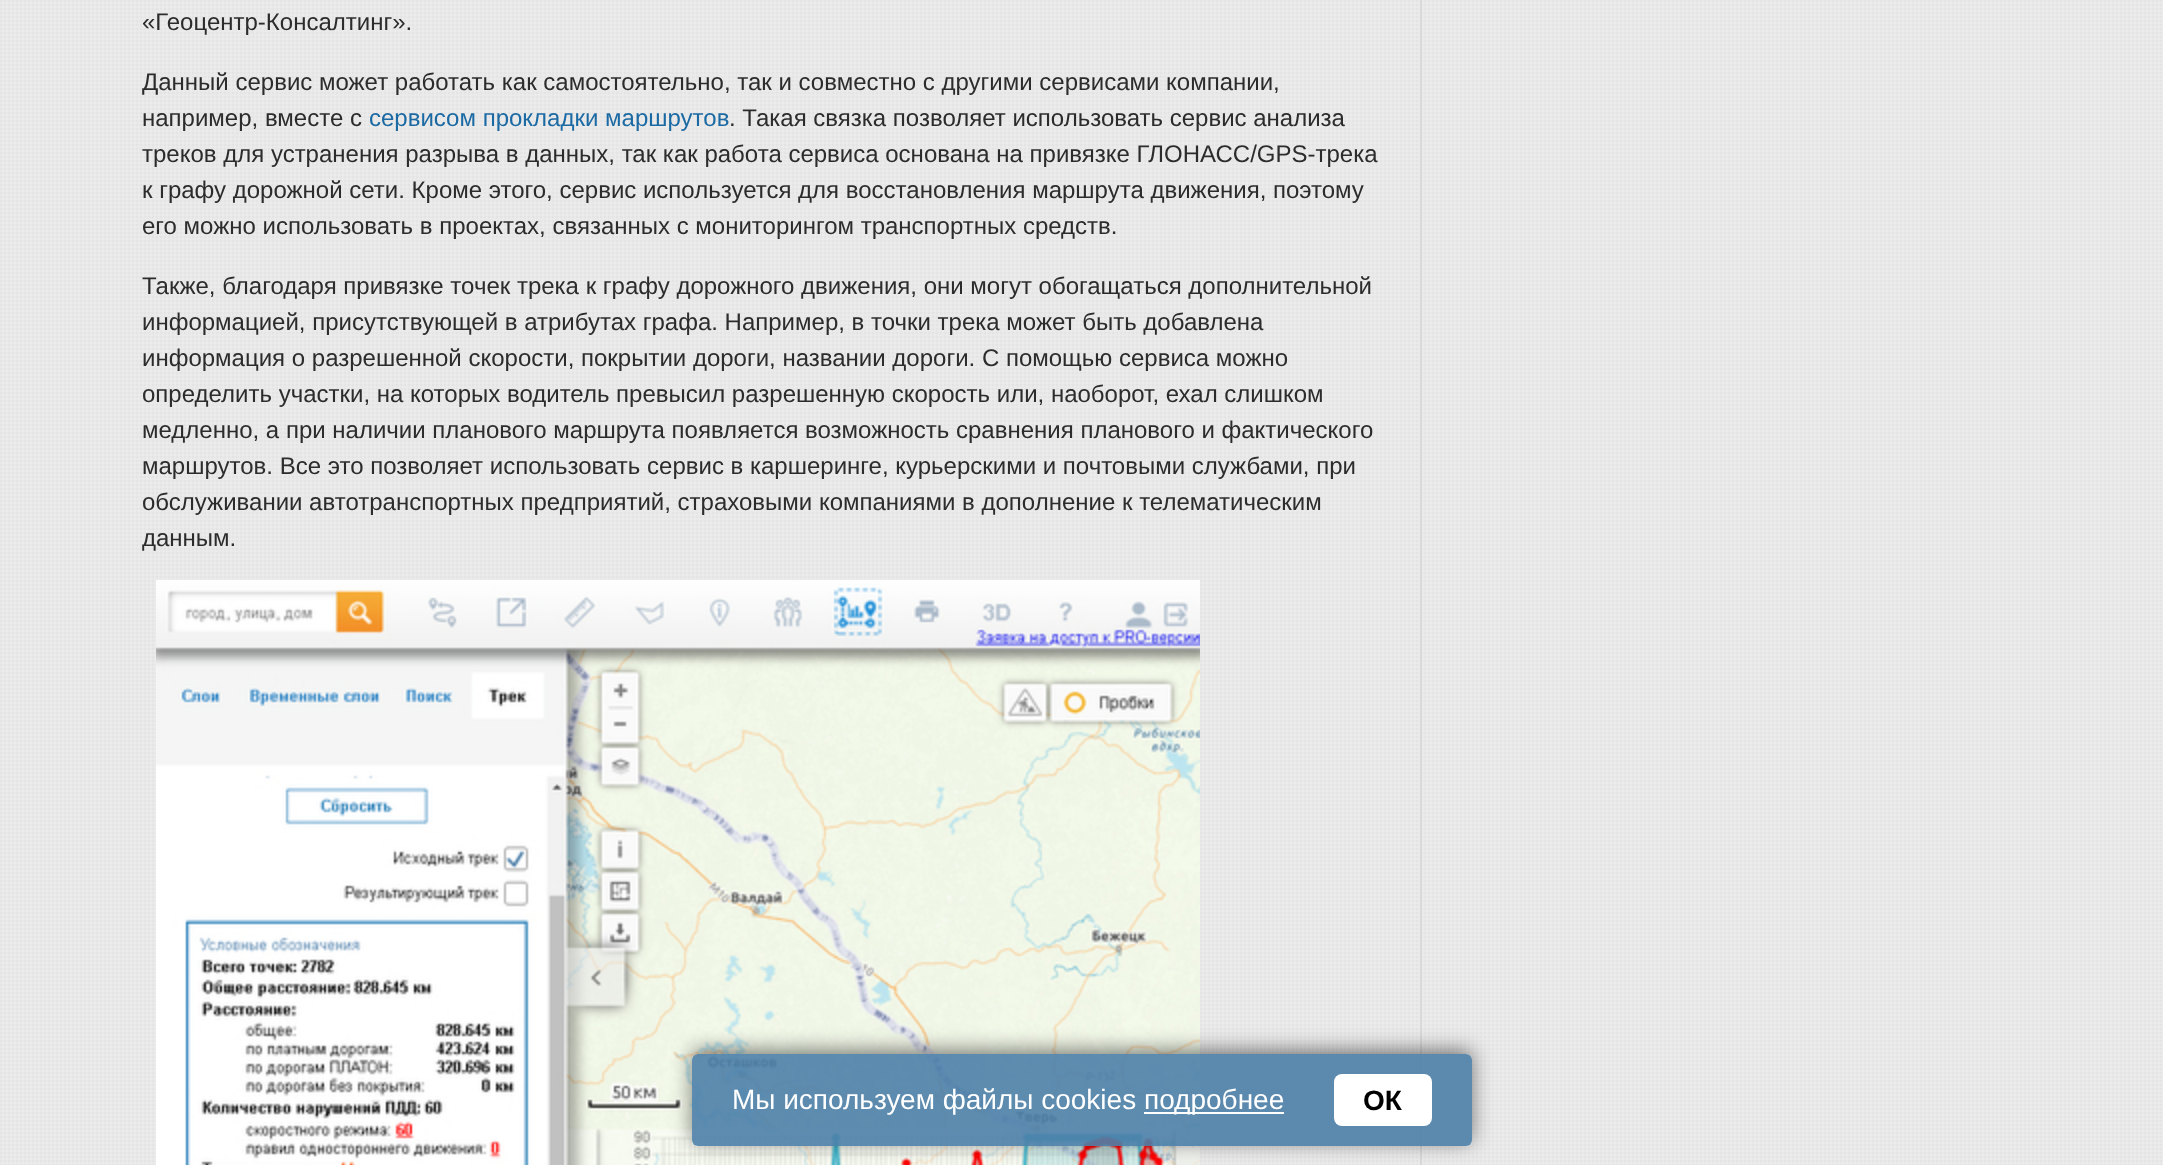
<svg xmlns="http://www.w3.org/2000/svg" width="2163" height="1165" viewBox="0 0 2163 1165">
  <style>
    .t1 { font: 24px Liberation Sans; fill: #2c2c2c; }
    .t2 { font: 24px Liberation Sans; fill: #1c6aa3; }
    .t3 { font: 28px Liberation Sans; fill: #fff; }
    .t4 { font: bold 28px Liberation Sans; fill: #000; }
  </style>
  <defs>
    <clipPath id="clip1"><path d="M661 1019H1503V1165H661ZM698 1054H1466C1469.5 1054 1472 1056.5 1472 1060V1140C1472 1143.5 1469.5 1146 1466 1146H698C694.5 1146 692 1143.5 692 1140V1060C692 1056.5 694.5 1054 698 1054Z" clip-rule="evenodd"/></clipPath>
  </defs>
  <rect width="100%" height="100%" fill="#ebebeb"/>
  <image x="0" y="0" width="2162" height="1165" href="images/1.png"/>
  <rect x="1420" y="0" width="2" height="1165" fill="#d9d9d9"/>
  <text x="142" y="30" class="t1">«Геоцентр-Консалтинг».</text>
  <text x="142" y="90" class="t1">Данный сервис может работать как самостоятельно, так и совместно с другими сервисами компании,</text>
  <text x="142" y="126" class="t1">например, вместе с</text>
  <text x="369" y="126" class="t2">сервисом прокладки маршрутов</text>
  <text x="729" y="126" class="t1">. Такая связка позволяет использовать сервис анализа</text>
  <text x="142" y="162" class="t1">треков для устранения разрыва в данных, так как работа сервиса основана на привязке ГЛОНАСС/GPS-трека</text>
  <text x="142" y="198" class="t1">к графу дорожной сети. Кроме этого, сервис используется для восстановления маршрута движения, поэтому</text>
  <text x="142" y="234" class="t1">его можно использовать в проектах, связанных с мониторингом транспортных средств.</text>
  <text x="142" y="294" class="t1">Также, благодаря привязке точек трека к графу дорожного движения, они могут обогащаться дополнительной</text>
  <text x="142" y="330" class="t1">информацией, присутствующей в атрибутах графа. Например, в точки трека может быть добавлена</text>
  <text x="142" y="366" class="t1">информация о разрешенной скорости, покрытии дороги, названии дороги. С помощью сервиса можно</text>
  <text x="142" y="402" class="t1">определить участки, на которых водитель превысил разрешенную скорость или, наоборот, ехал слишком</text>
  <text x="142" y="438" class="t1">медленно, а при наличии планового маршрута появляется возможность сравнения планового и фактического</text>
  <text x="142" y="474" class="t1">маршрутов. Все это позволяет использовать сервис в каршеринге, курьерскими и почтовыми службами, при</text>
  <text x="142" y="510" class="t1">обслуживании автотранспортных предприятий, страховыми компаниями в дополнение к телематическим</text>
  <text x="142" y="546" class="t1">данным.</text>
  <image x="156" y="580" width="1044" height="585" href="images/2.png"/>
  <g clip-path="url(#clip1)">
    <rect x="692" y="1050" width="780" height="92" rx="6" fill="#00000080" filter="blur(10px)"/>
  </g>
  <rect x="692" y="1054" width="780" height="92" rx="6" fill="#4d80a9e6"/>
  <text x="732" y="1109" class="t3">Мы используем файлы cookies</text>
  <rect x="1144" y="1112" width="140" height="2" fill="#fff"/>
  <text x="1144" y="1109" class="t3">подробнее</text>
  <rect x="1334" y="1074" width="98" height="52" rx="8" fill="#fff"/>
  <text x="1363" y="1110" class="t4">ОК</text>
</svg>
